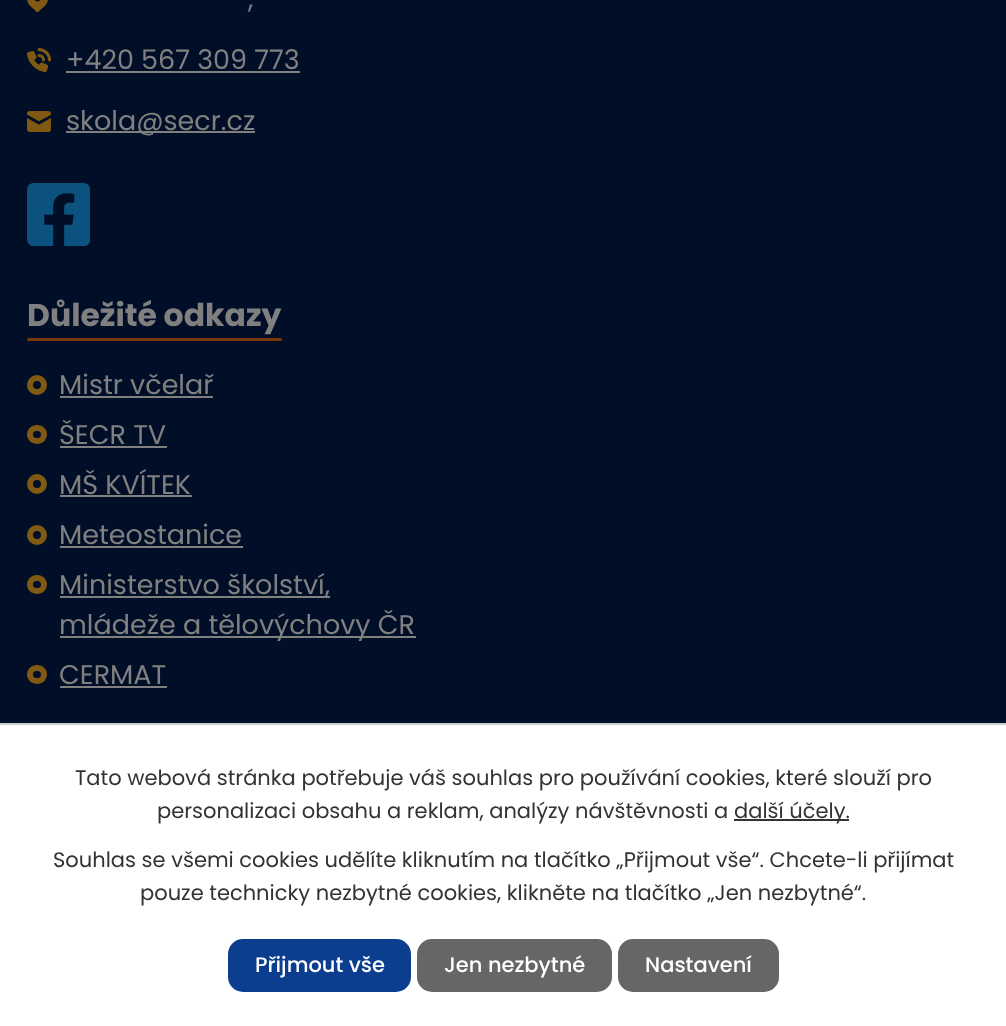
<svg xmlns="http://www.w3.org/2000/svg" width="1006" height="1026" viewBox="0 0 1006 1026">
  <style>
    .t1 { font: 27px Poppins; fill: #808080; }
    .t2 { font: bold 31.5px Poppins; fill: #808080; }
    .t3 { font: 21px Poppins; fill: #333; }
    .t4 { font: 500 21px Poppins; fill: #fff; }
  </style>
  <rect width="100%" height="100%" fill="#000f27"/>
  <image x="27" y="0" width="21" height="12" href="images/1.png"/>
  <text x="248" y="8" class="t1">,</text>
  <image x="27" y="48" width="24" height="24" href="images/2.png"/>
  <text x="66" y="69" class="t1">+420 567 309 773</text>
  <rect x="66" y="71" width="234" height="2" fill="#808080"/>
  <image x="27" y="111" width="24" height="21" href="images/3.png"/>
  <rect x="66" y="131" width="189" height="2" fill="#808080"/>
  <text x="66" y="130" class="t1">skola@secr.cz</text>
  <image x="27" y="183" width="63" height="63" href="images/4.png"/>
  <text x="27" y="326" class="t2">Důležité odkazy</text>
  <rect x="27" y="338" width="255" height="3" rx="1.5" fill="#763804"/>
  <circle cx="37" cy="385" r="7" fill="none" stroke="#805a13" stroke-width="6"/>
  <text x="59" y="394" class="t1">Mistr včelař</text>
  <rect x="60" y="396" width="153" height="2" fill="#808080"/>
  <rect x="30" y="428" width="14" height="13" rx="6.5" fill="none" stroke="#805a13" stroke-width="6"/>
  <text x="59" y="444" class="t1">ŠECR TV</text>
  <rect x="60" y="446" width="107" height="2" fill="#808080"/>
  <circle cx="37" cy="484" r="7" fill="none" stroke="#805a13" stroke-width="6"/>
  <text x="59" y="494" class="t1">MŠ KVÍTEK</text>
  <rect x="60" y="495" width="132" height="2" fill="#808080"/>
  <circle cx="37" cy="535" r="7" fill="none" stroke="#805a13" stroke-width="6"/>
  <text x="59" y="544" class="t1">Meteostanice</text>
  <rect x="60" y="546" width="183" height="2" fill="#808080"/>
  <rect x="30" y="578" width="14" height="13" rx="6.5" fill="none" stroke="#805a13" stroke-width="6"/>
  <rect x="60" y="596" width="270" height="2" fill="#808080"/>
  <text x="59" y="594" class="t1">Ministerstvo školství,</text>
  <rect x="60" y="636" width="356" height="2" fill="#808080"/>
  <text x="59" y="634" class="t1">mládeže a tělovýchovy ČR</text>
  <rect x="30" y="668" width="14" height="13" rx="6.5" fill="none" stroke="#805a13" stroke-width="6"/>
  <text x="59" y="684" class="t1">CERMAT</text>
  <rect x="60" y="686" width="107" height="2" fill="#808080"/>
  <rect x="0" y="725" width="1006" height="301" fill="#fff"/>
  <rect x="0" y="723" width="1006" height="2" fill="#ccc"/>
  <text x="75" y="785" class="t3">Tato webová stránka potřebuje váš souhlas pro používání cookies, které slouží pro</text>
  <text x="157" y="818" class="t3">personalizaci obsahu a reklam, analýzy návštěvnosti a</text>
  <rect x="734" y="819" width="115" height="2" fill="#333"/>
  <text x="734" y="818" class="t3">další účely.</text>
  <text x="53" y="867" class="t3">Souhlas se všemi cookies udělíte kliknutím na tlačítko „Přijmout vše“. Chcete-li přijímat</text>
  <text x="140" y="900" class="t3">pouze technicky nezbytné cookies, klikněte na tlačítko „Jen nezbytné“.</text>
  <rect x="228" y="939" width="183" height="53" rx="15" fill="#0c3e8f"/>
  <text x="255" y="972" class="t4">Přijmout vše</text>
  <rect x="417" y="939" width="195" height="53" rx="15" fill="#666"/>
  <text x="444" y="972" class="t4">Jen nezbytné</text>
  <rect x="618" y="939" width="161" height="53" rx="15" fill="#666"/>
  <text x="645" y="972" class="t4">Nastavení</text>
</svg>
